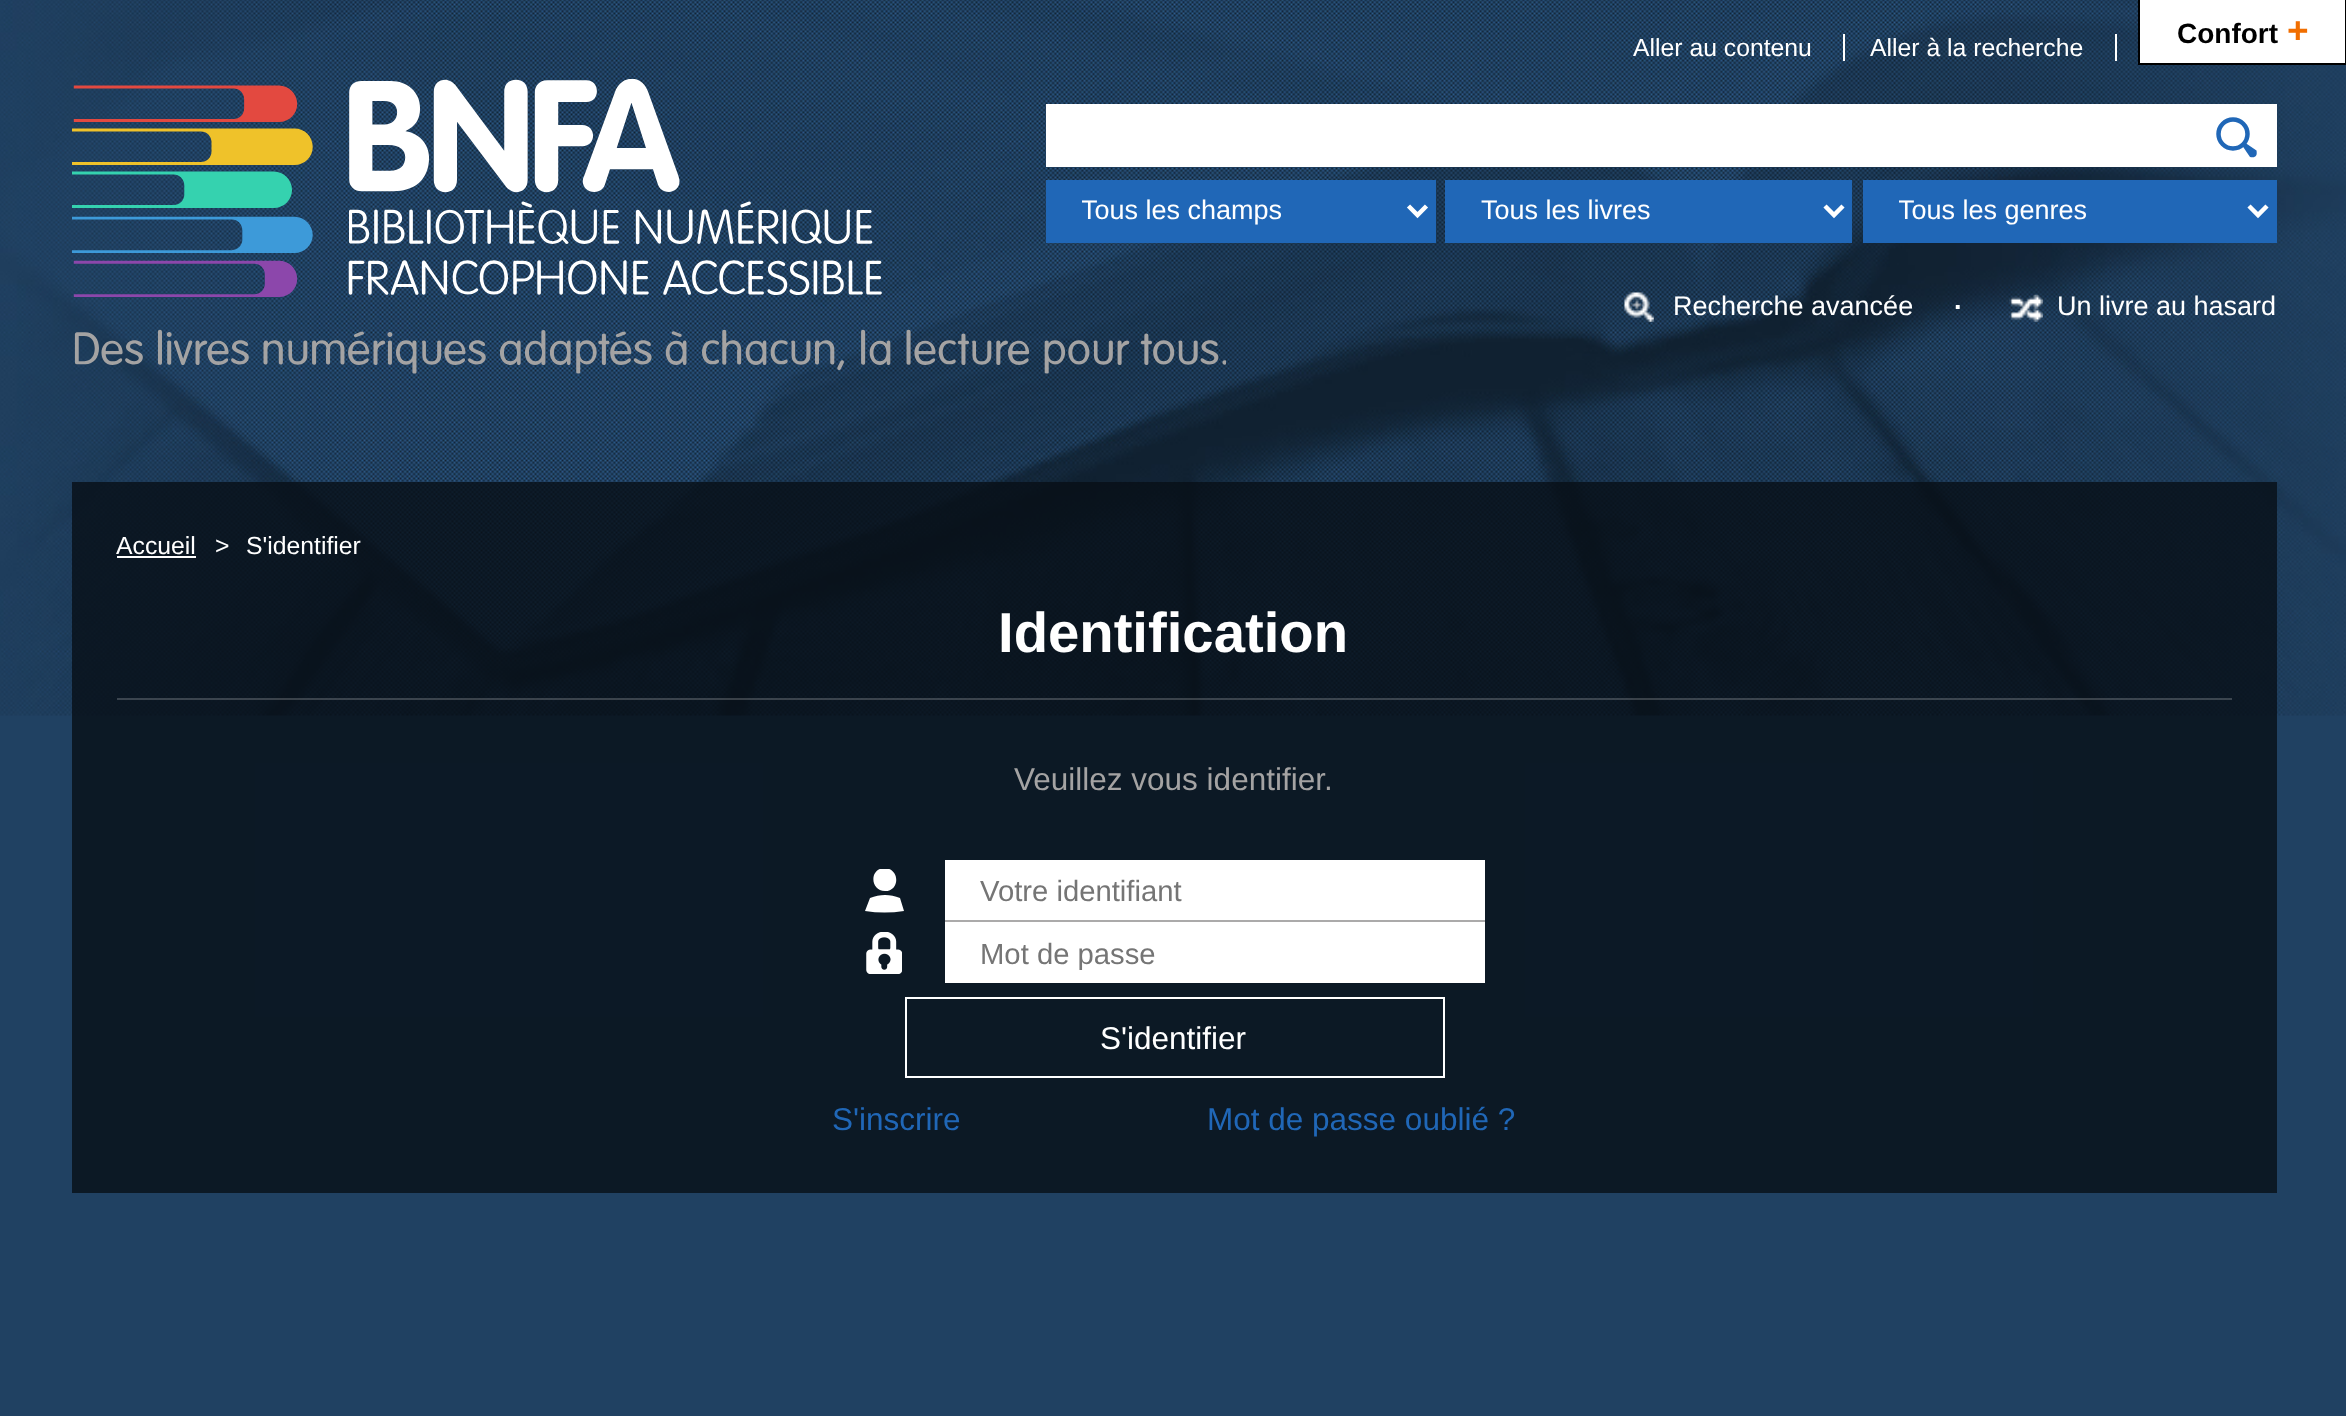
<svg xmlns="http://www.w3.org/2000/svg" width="2346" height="1416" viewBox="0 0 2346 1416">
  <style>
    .t1 { font: bold 28px Liberation Sans; fill: #000; }
    .t2 { font: bold 37px Liberation Sans; fill: #f16e00; }
    .t3 { font: 24.75px Liberation Sans; fill: #fff; }
    .t4 { font: 27px Liberation Sans; fill: #fff; }
    .t5 { font: bold 27px Liberation Sans; fill: #fff; }
    .t6 { font: bold 56.25px Liberation Sans; fill: #fff; }
    .t7 { font: 31.5px Liberation Sans; fill: #a4a3a3; }
    .t8 { font: 29.25px Liberation Sans; fill: #757575; }
    .t9 { font: 31.5px Liberation Sans; fill: #fff; }
    .t10 { font: 31.5px Liberation Sans; fill: #2067b7; }
  </style>
  <defs>
    <clipPath id="clip1"><rect x="1082" y="194" width="291" height="36"/></clipPath>
    <clipPath id="clip2"><rect x="1899" y="194" width="315" height="36"/></clipPath>
    <clipPath id="clip3"><rect x="864" y="869" width="41" height="45"/></clipPath>
  </defs>
  <rect width="100%" height="100%" fill="#204162"/>
  <image x="0" y="0" width="2346" height="716" href="images/1.png"/>
  <rect x="2140" y="0" width="205" height="63" fill="#fff"/>
  <rect x="2345" y="0" width="1" height="65" fill="#000"/>
  <rect x="2138" y="63" width="208" height="2" fill="#000"/>
  <rect x="2138" y="0" width="2" height="65" fill="#000"/>
  <text x="2177" y="43" class="t1">Confort</text>
  <text x="2287" y="43" class="t2">+</text>
  <text x="1633" y="56" class="t3">Aller au contenu</text>
  <text x="1870" y="56" class="t3">Aller à la recherche</text>
  <rect x="1843" y="34" width="2" height="27" fill="#fff"/>
  <rect x="2115" y="34" width="2" height="27" fill="#fff"/>
  <image x="72" y="79" width="1154" height="295" href="images/2.png"/>
  <rect x="1046" y="104" width="1231" height="63" fill="#fff"/>
  <path d="M2250 157L2242.5 146L2245.5 143L2256.5 150.5C2257.5 156 2255.5 158 2250 157Z" fill="#2067b7" fill-rule="evenodd"/>
  <circle cx="2233" cy="134" r="14.5" fill="none" stroke="#2067b7" stroke-width="4.5"/>
  <rect x="1046" y="180" width="390" height="63" fill="#2067b7"/>
  <path d="M1408.5 206L1417.5 215L1426.5 206" fill="none" stroke="#fff" stroke-width="4.5"/>
  <g clip-path="url(#clip1)">
    <text x="1081" y="219" class="t4">Tous les champs</text>
  </g>
  <rect x="1445" y="180" width="407" height="63" fill="#2067b7"/>
  <path d="M1825 206L1834 215L1843 206" fill="none" stroke="#fff" stroke-width="4.5"/>
  <text x="1481" y="219" class="t4">Tous les livres</text>
  <rect x="1863" y="180" width="414" height="63" fill="#2067b7"/>
  <path d="M2249 206L2258 215L2267 206" fill="none" stroke="#fff" stroke-width="4.5"/>
  <g clip-path="url(#clip2)">
    <text x="1898" y="219" class="t4">Tous les genres</text>
  </g>
  <image x="1624" y="292" width="30" height="30" href="images/3.png"/>
  <text x="1673" y="315" class="t4">Recherche avancée</text>
  <text x="1954" y="309" class="t5">.</text>
  <image x="2009" y="294" width="34" height="28" href="images/4.png"/>
  <text x="2057" y="315" class="t4">Un livre au hasard</text>
  <rect x="72" y="482" width="2205" height="711" fill="#070f17cc"/>
  <text x="116" y="554" class="t3">Accueil</text>
  <rect x="117" y="556" width="79" height="2" fill="#fff"/>
  <text x="215" y="554" class="t3">&gt;</text>
  <text x="246" y="554" class="t3">S'identifier</text>
  <rect x="117" y="698" width="2115" height="2" fill="#ffffff33"/>
  <text x="998" y="652" class="t6">Identification</text>
  <text x="1014" y="790" class="t7">Veuillez vous identifier.</text>
  <g clip-path="url(#clip3)">
    <path d="M900 898C890 894 880 894 870 898L865 911C878 913 891 913 904 911ZM885 891C900 891 900 869 885 868C869 868 870 891 885 891Z" fill="#fff"/>
  </g>
  <rect x="945" y="860" width="540" height="60" fill="#fff"/>
  <text x="980" y="901" class="t8">Votre identifiant</text>
  <image x="866" y="932" width="36" height="42" href="images/5.png"/>
  <rect x="945" y="922" width="540" height="61" fill="#fff"/>
  <rect x="945" y="920" width="540" height="2" fill="#abaaaa"/>
  <text x="980" y="964" class="t8">Mot de passe</text>
  <rect x="906" y="998" width="538" height="79" fill="none" stroke="#fff" stroke-width="2"/>
  <text x="1100" y="1049" class="t9">S'identifier</text>
  <text x="832" y="1130" class="t10">S'inscrire</text>
  <text x="1207" y="1130" class="t10">Mot de passe oublié ?</text>
</svg>
